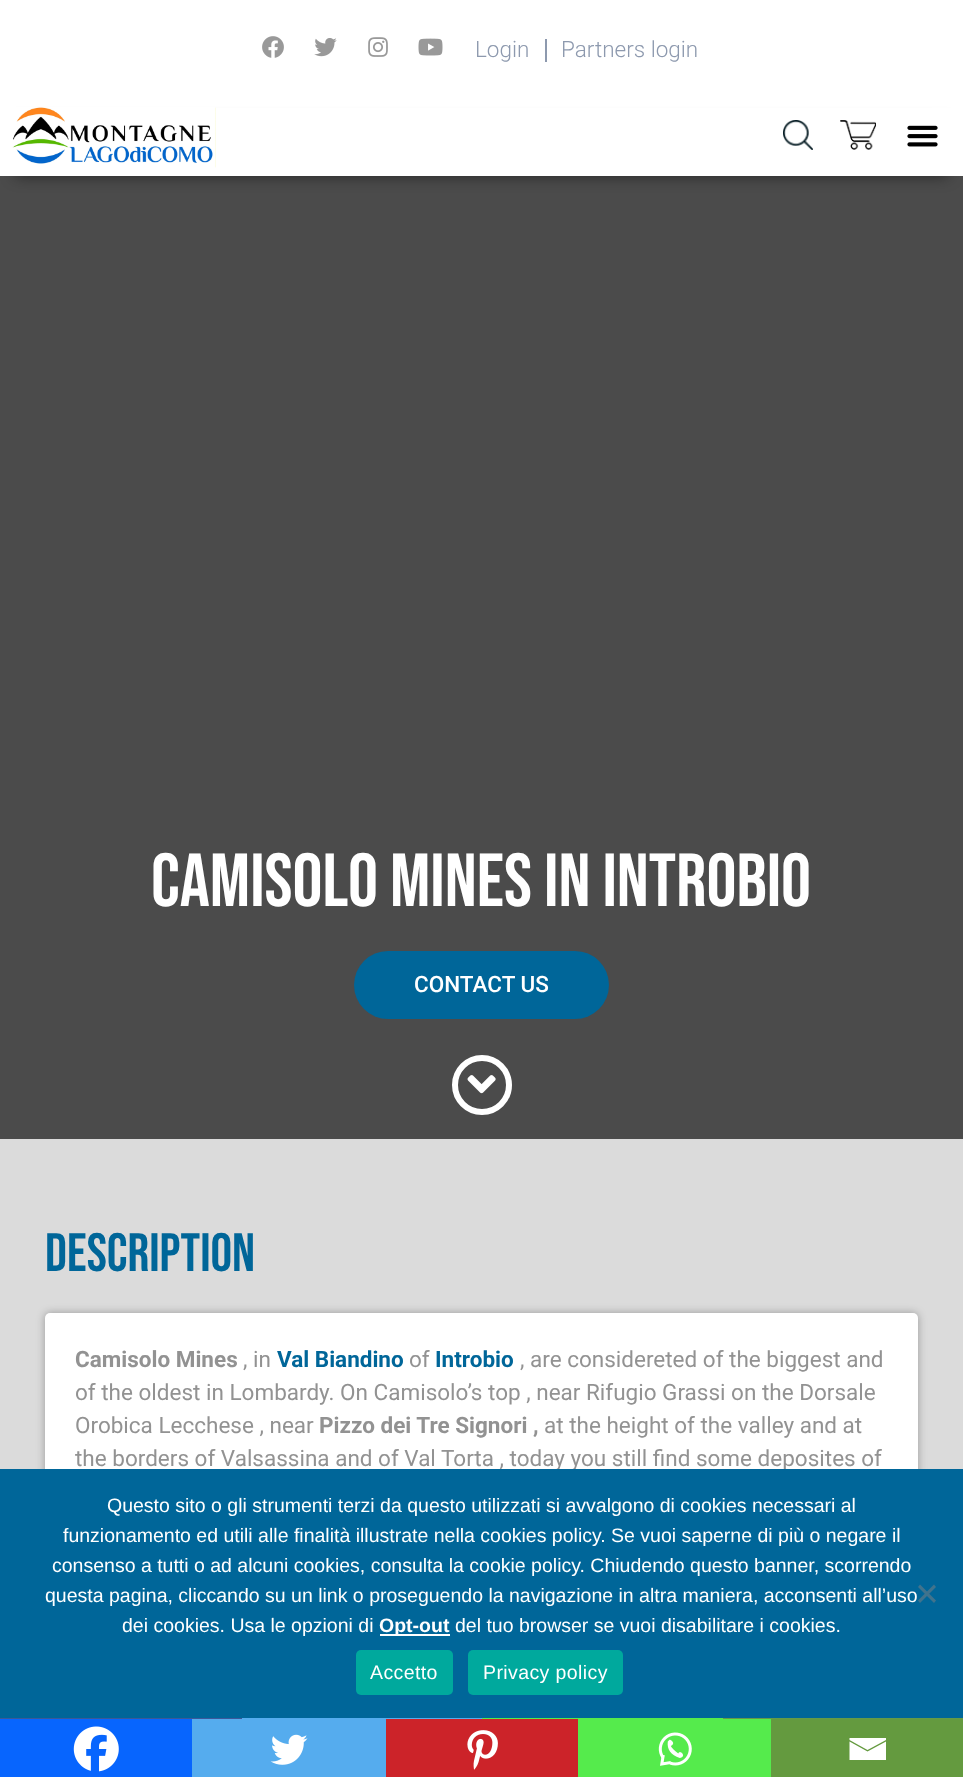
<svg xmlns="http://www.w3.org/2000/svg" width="963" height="1777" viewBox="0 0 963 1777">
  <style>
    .t1 { font: 300 22.5px Roboto; fill: #8d99ae; }
    .t2 { font: 75px Bebas Neue; fill: #fff; }
    .t3 { font: 500 22.5px Roboto; fill: #fff; }
    .t4 { font: 54px Bebas Neue; fill: #069; }
    .t5 { font: bold 22.5px Roboto; fill: #929292; }
    .t6 { font: 22.5px Roboto; fill: #929292; }
    .t7 { font: bold 22.5px Roboto; fill: #069; }
    .t8 { font: 19.5px Liberation Sans; fill: #fff; }
    .t9 { font: bold 19.5px Liberation Sans; fill: #fff; }
    .t10 { font: 19.5px Liberation Sans; letter-spacing: 0.4px; fill: #fff; }
  </style>
  <rect width="100%" height="100%" fill="#fff"/>
  <image x="262" y="36" width="22" height="22" href="images/1.png"/>
  <image x="314" y="38" width="23" height="19" href="images/2.png"/>
  <image x="368" y="37" width="20" height="20" href="images/3.png"/>
  <image x="418" y="38" width="25" height="18" href="images/4.png"/>
  <rect x="545" y="39" width="2" height="23" fill="#8d99ae"/>
  <text x="475" y="57" class="t1">Login</text>
  <text x="561" y="57" class="t1">Partners login</text>
  <rect x="0" y="176" width="963" height="963" fill="#4b4b4b"/>
  <rect x="15" y="123" width="933" height="53" fill="#00000080" filter="blur(7.5px)"/>
  <rect x="0" y="108" width="963" height="68" fill="#fff"/>
  <image x="12" y="107" width="204" height="61" href="images/5.png"/>
  <image x="783" y="120" width="30" height="30" href="images/6.png"/>
  <image x="840" y="120" width="36" height="30" href="images/7.png"/>
  <image x="907" y="125" width="31" height="22" href="images/8.png"/>
  <text x="151" y="906" class="t2">Camisolo Mines in Introbio</text>
  <rect x="354" y="951" width="255" height="68" rx="34" fill="#069"/>
  <text x="414" y="992" class="t3">CONTACT US</text>
  <circle cx="482" cy="1085" r="27" fill="none" stroke="#fff" stroke-width="6"/>
  <image x="467" y="1075" width="29" height="19" href="images/9.png"/>
  <rect x="0" y="1139" width="963" height="330" fill="#dbdbdb"/>
  <text x="45" y="1271" class="t4">Description</text>
  <rect x="45" y="1313" width="873" height="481" rx="5" fill="#0000004d" filter="blur(4px)"/>
  <rect x="45" y="1313" width="873" height="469" rx="5" fill="#fff"/>
  <text x="75" y="1367" class="t5">Camisolo Mines</text>
  <text x="243" y="1367" class="t6">, in</text>
  <text x="277" y="1367" class="t7">Val Biandino</text>
  <text x="409" y="1367" class="t6">of</text>
  <text x="435" y="1367" class="t7">Introbio</text>
  <text x="520" y="1367" class="t6">, are considereted of the biggest and</text>
  <text x="75" y="1400" class="t6">of the oldest in Lombardy. On Camisolo’s top , near Rifugio Grassi on the Dorsale</text>
  <text x="75" y="1433" class="t6">Orobica Lecchese , near</text>
  <text x="319" y="1433" class="t5">Pizzo dei Tre Signori ,</text>
  <text x="544" y="1433" class="t6">at the height of the valley and at</text>
  <text x="75" y="1466" class="t6">the borders of Valsassina and of Val Torta , today you still find some deposites of</text>
  <rect x="0" y="1469" width="963" height="249" fill="#069"/>
  <text x="107" y="1512" class="t8">Questo sito o gli strumenti terzi da questo utilizzati si avvalgono di cookies necessari al</text>
  <text x="63" y="1542" class="t8">funzionamento ed utili alle finalità illustrate nella cookies policy. Se vuoi saperne di più o negare il</text>
  <text x="52" y="1572" class="t8">consenso a tutti o ad alcuni cookies, consulta la cookie policy. Chiudendo questo banner, scorrendo</text>
  <text x="45" y="1602" class="t8">questa pagina, cliccando su un link o proseguendo la navigazione in altra maniera, acconsenti all’uso</text>
  <text x="122" y="1632" class="t8">dei cookies. Usa le opzioni di</text>
  <rect x="380" y="1634" width="70" height="2" fill="#fff"/>
  <text x="379" y="1632" class="t9">Opt-out</text>
  <text x="455" y="1632" class="t8">del tuo browser se vuoi disabilitare i cookies.</text>
  <path d="M934 1584.5L936 1587L920 1603L918 1600.5Z" fill="#40738d"/>
  <path d="M918 1587L920 1584.5L936 1600.5L934 1603Z" fill="#40738d"/>
  <rect x="356" y="1650" width="97" height="45" rx="5" fill="#00a99d"/>
  <text x="370" y="1679" class="t10">Accetto</text>
  <rect x="468" y="1650" width="155" height="45" rx="5" fill="#00a99d"/>
  <text x="483" y="1679" class="t10">Privacy policy</text>
  <rect x="0" y="1718" width="242" height="1" fill="#3c589a"/>
  <rect x="242" y="1718" width="240" height="1" fill="#55acee"/>
  <rect x="482" y="1718" width="241" height="1" fill="#55eb4c"/>
  <rect x="723" y="1718" width="240" height="1" fill="#649a49"/>
  <rect x="0" y="1719" width="192" height="58" fill="#0765fe"/>
  <image x="73" y="1726" width="46" height="46" href="images/10.png"/>
  <rect x="192" y="1719" width="194" height="58" fill="#55acee"/>
  <image x="270" y="1734" width="38" height="31" href="images/11.png"/>
  <rect x="386" y="1719" width="192" height="58" fill="#cc2329"/>
  <image x="467" y="1730" width="31" height="40" href="images/12.png"/>
  <rect x="578" y="1719" width="193" height="58" fill="#55eb4c"/>
  <image x="658" y="1732" width="34" height="34" href="images/13.png"/>
  <rect x="771" y="1719" width="192" height="58" fill="#649a3f"/>
  <path d="M847.5 1738H886V1740L867.5 1750L849.5 1740V1738M849.5 1741.5L867.5 1751.5L886 1741.5V1760H849.5V1741.5" fill="#fff"/>
</svg>
